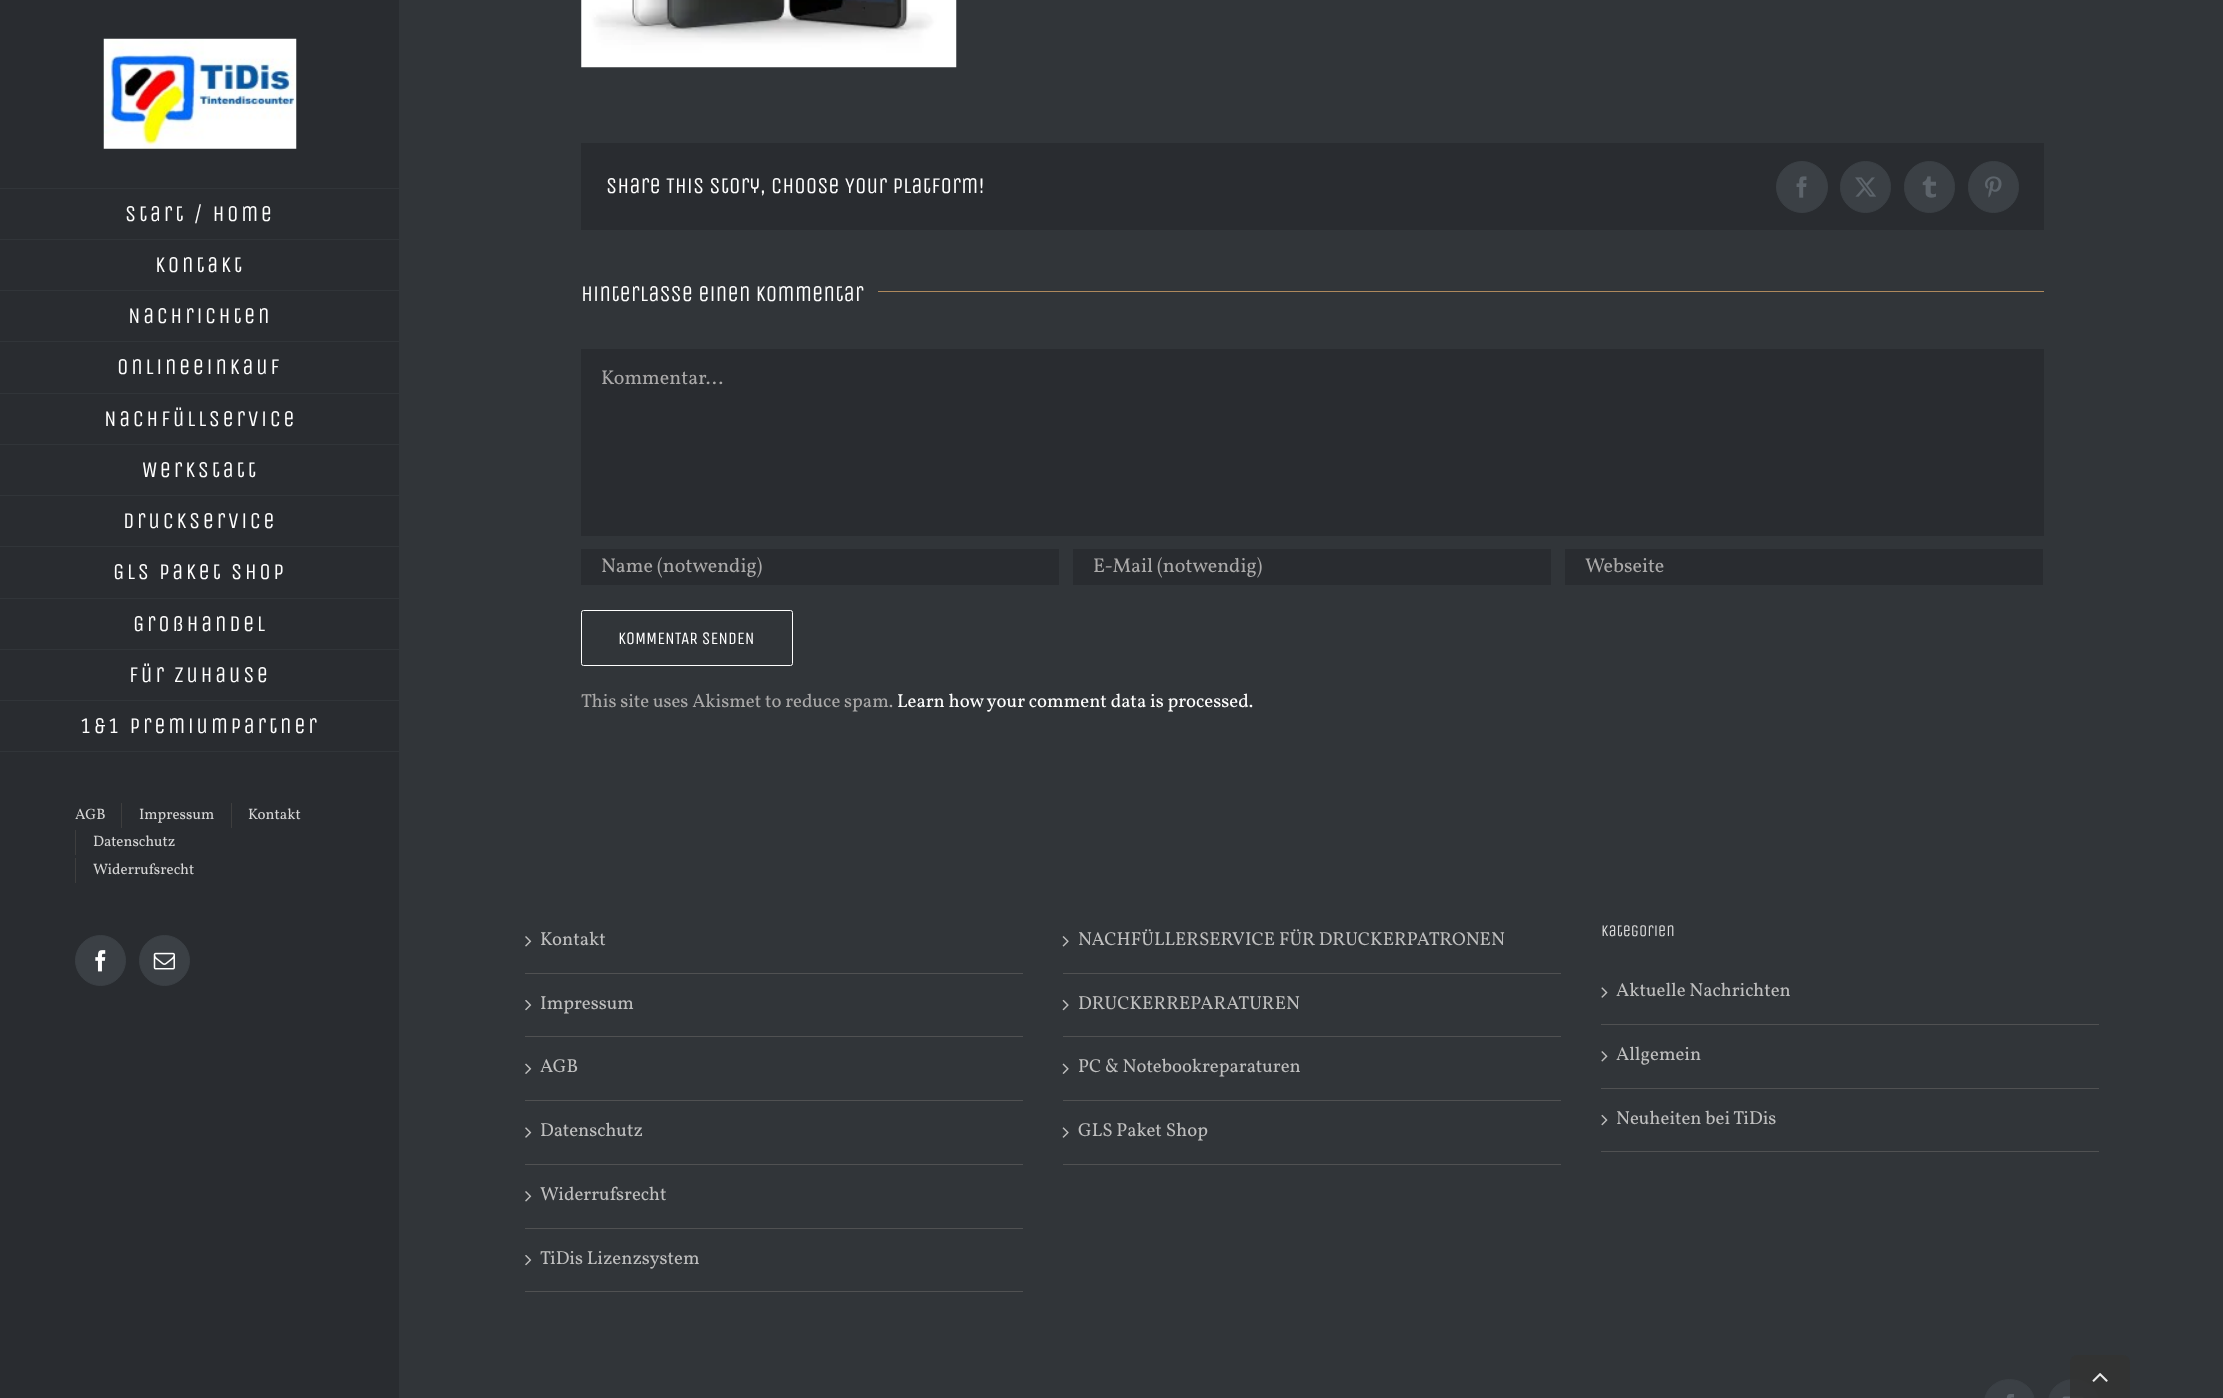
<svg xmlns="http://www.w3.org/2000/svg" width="2223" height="1398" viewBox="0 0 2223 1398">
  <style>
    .t1 { font: 22.5px Unica One; letter-spacing: 2.5px; fill: #fff; }
    .t2 { font: 15px Vollkorn; fill: #d6d6d6; }
    .t3 { font: 22.5px Unica One; fill: #fff; }
    .t4 { font: 20px Vollkorn; fill: #aaa9a9; }
    .t5 { font: 17.5px Unica One; fill: #fff; }
    .t6 { font: 18.75px Vollkorn; fill: #aaa9a9; }
    .t7 { font: 18.75px Vollkorn; fill: #fff; }
    .t8 { font: 18.75px Vollkorn; fill: #bfbfbf; }
    .t9 { font: 16.25px Unica One; fill: #ddd; }
  </style>
  <rect width="100%" height="100%" fill="#313539"/>
  <rect x="0" y="0" width="399" height="1398" fill="#292c30"/>
  <image x="103" y="38" width="194" height="111" href="images/1.png"/>
  <rect x="0" y="188" width="400" height="1" fill="#313539"/>
  <rect x="0" y="239" width="400" height="1" fill="#313539"/>
  <text x="125" y="221" class="t1">Start / Home</text>
  <rect x="0" y="290" width="400" height="1" fill="#313539"/>
  <text x="155" y="272" class="t1">Kontakt</text>
  <rect x="0" y="341" width="400" height="1" fill="#313539"/>
  <text x="128" y="323" class="t1">Nachrichten</text>
  <rect x="0" y="393" width="400" height="1" fill="#313539"/>
  <text x="117" y="374" class="t1">Onlineeinkauf</text>
  <rect x="0" y="444" width="400" height="1" fill="#313539"/>
  <text x="104" y="426" class="t1">Nachfüllservice</text>
  <rect x="0" y="495" width="400" height="1" fill="#313539"/>
  <text x="142" y="477" class="t1">Werkstatt</text>
  <rect x="0" y="546" width="400" height="1" fill="#313539"/>
  <text x="123" y="528" class="t1">Druckservice</text>
  <rect x="0" y="598" width="400" height="1" fill="#313539"/>
  <text x="113" y="579" class="t1">GLS Paket Shop</text>
  <rect x="0" y="649" width="400" height="1" fill="#313539"/>
  <text x="133" y="631" class="t1">Großhandel</text>
  <rect x="0" y="700" width="400" height="1" fill="#313539"/>
  <text x="129" y="682" class="t1">Für Zuhause</text>
  <rect x="0" y="751" width="400" height="1" fill="#313539"/>
  <text x="80" y="733" class="t1">1&amp;1 Premiumpartner</text>
  <text x="75" y="819" class="t2">AGB</text>
  <rect x="121" y="803" width="1" height="25" fill="#3e3e3e"/>
  <text x="139" y="819" class="t2">Impressum</text>
  <rect x="231" y="803" width="1" height="25" fill="#3e3e3e"/>
  <text x="248" y="819" class="t2">Kontakt</text>
  <rect x="75" y="830" width="1" height="25" fill="#3e3e3e"/>
  <text x="93" y="846" class="t2">Datenschutz</text>
  <rect x="75" y="858" width="1" height="25" fill="#3e3e3e"/>
  <text x="93" y="874" class="t2">Widerrufsrecht</text>
  <circle cx="100.5" cy="960.5" r="25" fill="#3b4045" stroke="#3b4045"/>
  <image x="95" y="950" width="11" height="22" href="images/2.png"/>
  <circle cx="164.5" cy="960.5" r="25" fill="#3b4045" stroke="#3b4045"/>
  <image x="153" y="952" width="22" height="18" href="images/3.png"/>
  <image x="581" y="0" width="376" height="68" href="images/4.png"/>
  <rect x="581" y="143" width="1463" height="87" fill="#292c30"/>
  <text x="606" y="193" class="t3">Share This Story, Choose Your Platform!</text>
  <circle cx="1802" cy="187" r="25.5" fill="#3b4045" stroke="#3b4045"/>
  <image x="1796" y="176" width="11" height="22" href="images/5.png"/>
  <rect x="1840.5" y="161.5" width="50" height="51" rx="25" fill="#3b4045" stroke="#3b4045"/>
  <image x="1855" y="177" width="21" height="20" href="images/6.png"/>
  <rect x="1904.5" y="161.5" width="50" height="51" rx="25" fill="#3b4045" stroke="#3b4045"/>
  <image x="1922" y="176" width="14" height="22" href="images/7.png"/>
  <rect x="1968.5" y="161.5" width="50" height="51" rx="25" fill="#3b4045" stroke="#3b4045"/>
  <image x="1985" y="176" width="17" height="22" href="images/8.png"/>
  <text x="581" y="301" class="t3">Hinterlasse einen Kommentar</text>
  <rect x="878" y="291" width="1166" height="1" fill="#ae895d"/>
  <rect x="581" y="349" width="1463" height="187" fill="#292c30"/>
  <text x="601" y="384" class="t4">Kommentar...</text>
  <rect x="581" y="549" width="478" height="36" fill="#292c30"/>
  <text x="601" y="572" class="t4">Name (notwendig)</text>
  <rect x="1073" y="549" width="478" height="36" fill="#292c30"/>
  <text x="1093" y="572" class="t4">E-Mail (notwendig)</text>
  <rect x="1565" y="549" width="478" height="36" fill="#292c30"/>
  <text x="1585" y="572" class="t4">Webseite</text>
  <rect x="581.5" y="610.5" width="211" height="55" rx="2" fill="none" stroke="#fff"/>
  <text x="618" y="644" class="t5">KOMMENTAR SENDEN</text>
  <text x="581" y="707" class="t6">This site uses Akismet to reduce spam.</text>
  <text x="897" y="707" class="t7">Learn how your comment data is processed.</text>
  <rect x="525" y="973" width="498" height="1" fill="#505152"/>
  <image x="525" y="936" width="7" height="11" href="images/9.png"/>
  <text x="540" y="945" class="t8">Kontakt</text>
  <rect x="525" y="1036" width="498" height="1" fill="#505152"/>
  <image x="525" y="1000" width="7" height="11" href="images/10.png"/>
  <text x="540" y="1009" class="t8">Impressum</text>
  <rect x="525" y="1100" width="498" height="1" fill="#505152"/>
  <image x="525" y="1063" width="7" height="11" href="images/11.png"/>
  <text x="540" y="1072" class="t8">AGB</text>
  <rect x="525" y="1164" width="498" height="1" fill="#505152"/>
  <image x="525" y="1127" width="7" height="11" href="images/12.png"/>
  <text x="540" y="1136" class="t8">Datenschutz</text>
  <rect x="525" y="1228" width="498" height="1" fill="#505152"/>
  <image x="525" y="1191" width="7" height="11" href="images/9.png"/>
  <text x="540" y="1200" class="t8">Widerrufsrecht</text>
  <rect x="525" y="1291" width="498" height="1" fill="#505152"/>
  <image x="525" y="1255" width="7" height="11" href="images/10.png"/>
  <text x="540" y="1264" class="t8">TiDis Lizenzsystem</text>
  <rect x="1063" y="973" width="498" height="1" fill="#505152"/>
  <image x="1062" y="936" width="7" height="11" href="images/13.png"/>
  <text x="1078" y="945" class="t8">NACHFÜLLERSERVICE FÜR DRUCKERPATRONEN</text>
  <rect x="1063" y="1036" width="498" height="1" fill="#505152"/>
  <image x="1062" y="999" width="7" height="12" href="images/14.png"/>
  <text x="1078" y="1009" class="t8">DRUCKERREPARATUREN</text>
  <rect x="1063" y="1100" width="498" height="1" fill="#505152"/>
  <image x="1062" y="1063" width="7" height="11" href="images/15.png"/>
  <text x="1078" y="1072" class="t8">PC &amp; Notebookreparaturen</text>
  <rect x="1063" y="1164" width="498" height="1" fill="#505152"/>
  <image x="1062" y="1127" width="7" height="11" href="images/16.png"/>
  <text x="1078" y="1136" class="t8">GLS Paket Shop</text>
  <text x="1601" y="936" class="t9">Kategorien</text>
  <rect x="1601" y="1024" width="498" height="1" fill="#505152"/>
  <image x="1601" y="987" width="7" height="11" href="images/17.png"/>
  <text x="1616" y="996" class="t8">Aktuelle Nachrichten</text>
  <rect x="1601" y="1088" width="498" height="1" fill="#505152"/>
  <image x="1601" y="1051" width="7" height="11" href="images/18.png"/>
  <text x="1616" y="1060" class="t8">Allgemein</text>
  <rect x="1601" y="1151" width="498" height="1" fill="#505152"/>
  <image x="1601" y="1114" width="7" height="12" href="images/19.png"/>
  <text x="1616" y="1124" class="t8">Neuheiten bei TiDis</text>
  <rect x="1984.5" y="1379.5" width="50" height="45" rx="25" fill="#3b4045" stroke="#3b4045"/>
  <image x="2006" y="1394" width="8" height="4" href="images/20.png"/>
  <rect x="2048.5" y="1379.5" width="50" height="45" rx="25" fill="#3b4045" stroke="#3b4045"/>
  <image x="2062" y="1396" width="22" height="2" href="images/21.png"/>
  <path d="M2078 1355H2122C2126.5 1355 2130 1358.5 2130 1363V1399H2070V1363C2070 1358.5 2073.5 1355 2078 1355Z" fill="#333333e6"/>
  <image x="2092" y="1373" width="16" height="9" href="images/22.png"/>
</svg>
